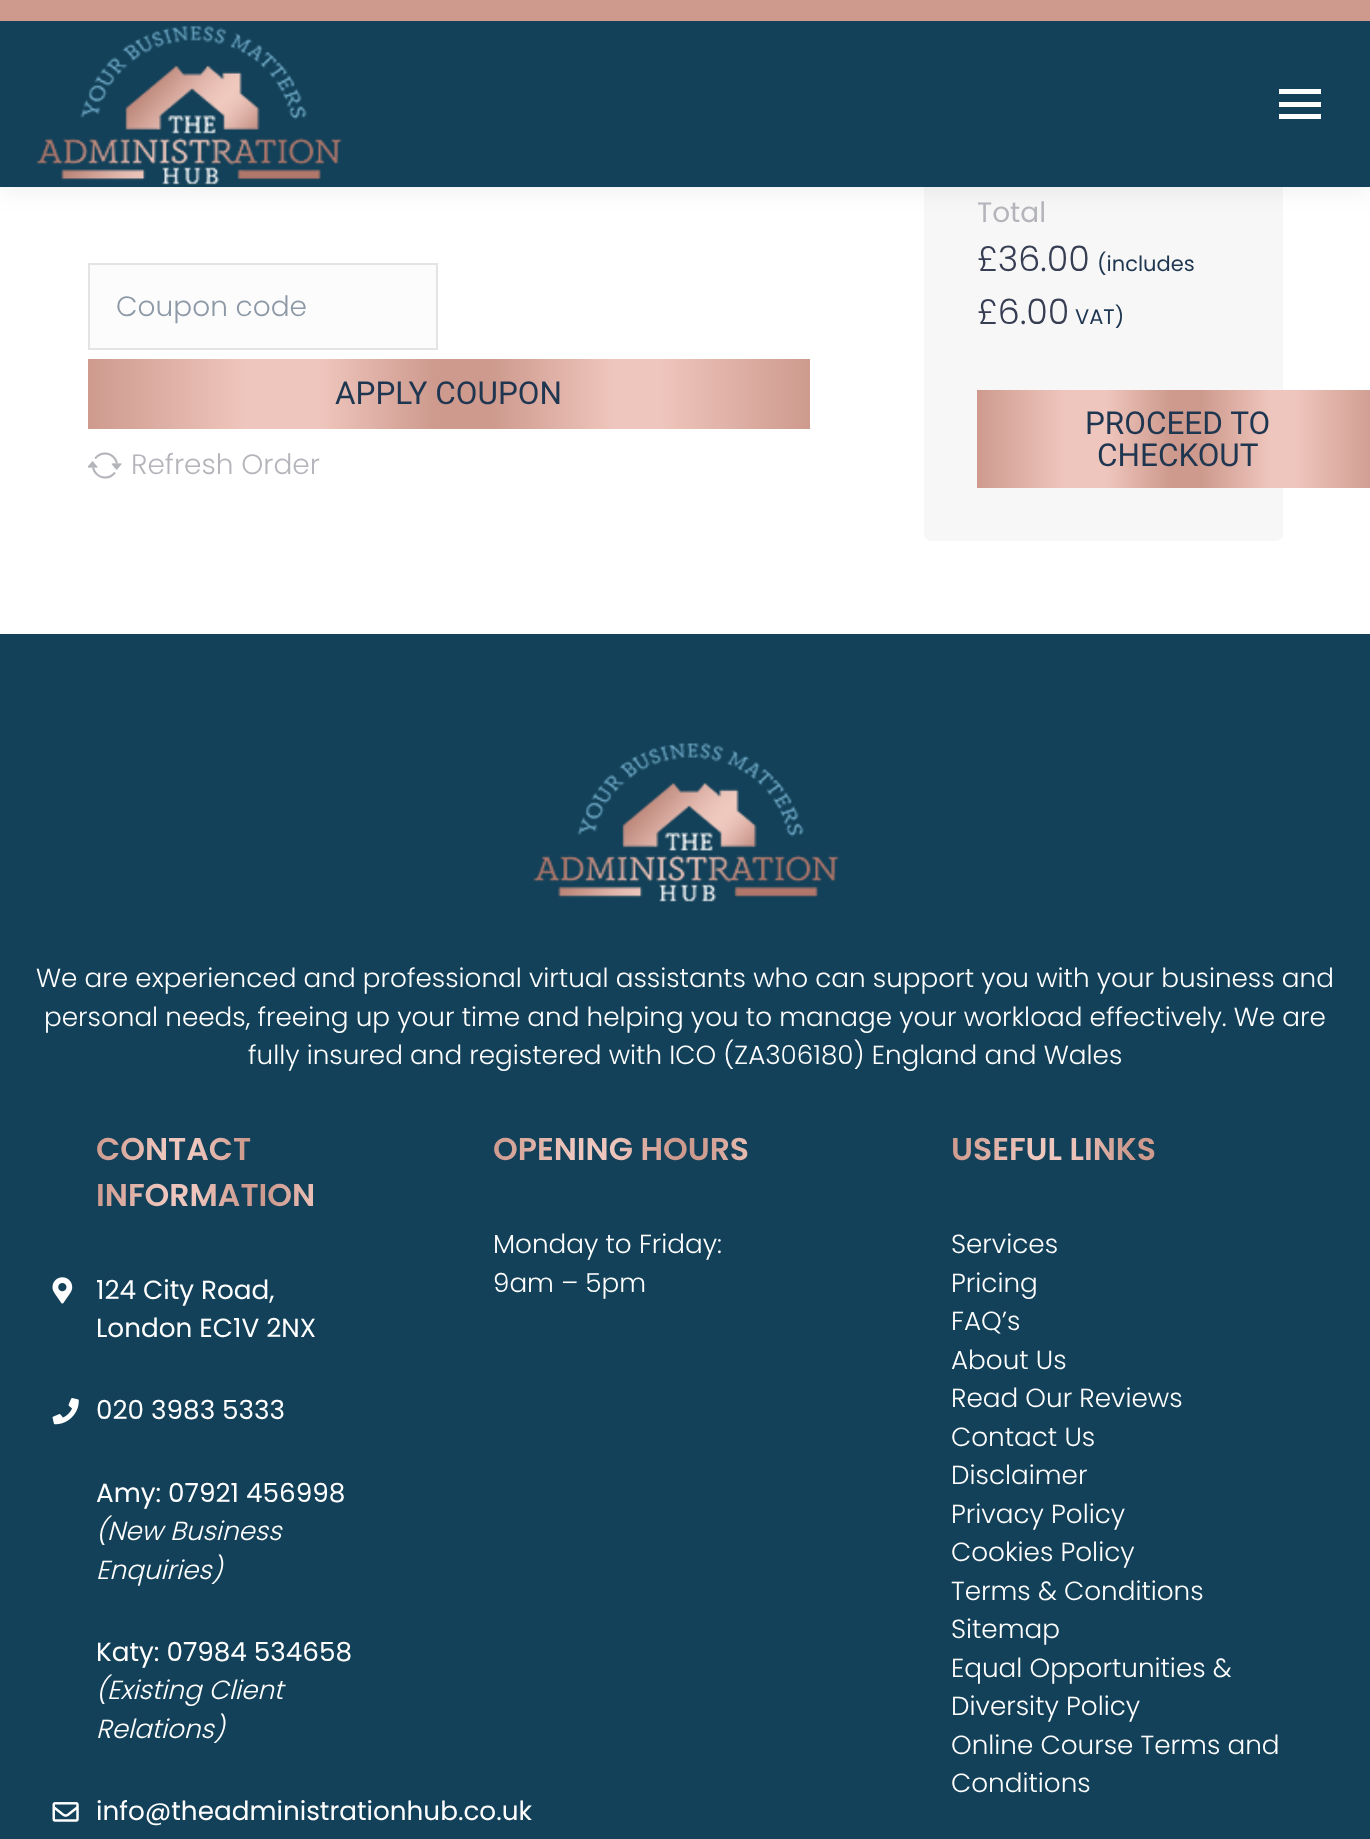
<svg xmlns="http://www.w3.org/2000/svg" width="1370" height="1839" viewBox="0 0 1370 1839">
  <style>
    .t1 { font: 300 28px Poppins; fill: #8e99a7; }
    .t2 { font: 31.5px Roboto; fill: #1f3651; }
    .t3 { font: 300 28px Poppins; fill: #b4b5bb; }
    .t4 { font: 28px Poppins; fill: #b4b5bb; }
    .t5 { font: 300 35px Poppins; fill: #373d53; }
    .t6 { font: 21px Poppins; fill: #1f3651; }
    .t7 { font: 300 26.25px Poppins; fill: #fff; }
    .t8 { font: 600 31.5px Poppins; fill: url(#g1); }
    .t9 { font: 26.25px Poppins; fill: #fff; }
    .t10 { font: italic 300 26.25px Poppins; fill: #fff; }
    .t11 { font: 600 31.5px Poppins; fill: url(#g2); }
    .t12 { font: 600 31.5px Poppins; fill: url(#g3); }
  </style>
  <defs>
    <linearGradient id="g1" gradientUnits="userSpaceOnUse" x1="96" y1="1173" x2="405" y2="1173"><stop offset="0" stop-color="#ce9a8e"/><stop offset="0.22" stop-color="#efc6bd"/><stop offset="0.32" stop-color="#efc6bd"/><stop offset="0.48" stop-color="#ce9a8e"/><stop offset="0.56" stop-color="#ce9a8e"/><stop offset="0.73" stop-color="#efc6bd"/><stop offset="0.79" stop-color="#efc6bd"/><stop offset="1" stop-color="#ce9a8e"/></linearGradient>
    <linearGradient id="g2" gradientUnits="userSpaceOnUse" x1="493" y1="1150" x2="863" y2="1150"><stop offset="0" stop-color="#ce9a8e"/><stop offset="0.22" stop-color="#efc6bd"/><stop offset="0.32" stop-color="#efc6bd"/><stop offset="0.48" stop-color="#ce9a8e"/><stop offset="0.56" stop-color="#ce9a8e"/><stop offset="0.73" stop-color="#efc6bd"/><stop offset="0.79" stop-color="#efc6bd"/><stop offset="1" stop-color="#ce9a8e"/></linearGradient>
    <linearGradient id="g3" gradientUnits="userSpaceOnUse" x1="951" y1="1150" x2="1321" y2="1150"><stop offset="0" stop-color="#ce9a8e"/><stop offset="0.22" stop-color="#efc6bd"/><stop offset="0.32" stop-color="#efc6bd"/><stop offset="0.48" stop-color="#ce9a8e"/><stop offset="0.56" stop-color="#ce9a8e"/><stop offset="0.73" stop-color="#efc6bd"/><stop offset="0.79" stop-color="#efc6bd"/><stop offset="1" stop-color="#ce9a8e"/></linearGradient>
    <linearGradient id="g4" gradientUnits="userSpaceOnUse" x1="88" y1="394" x2="810" y2="394"><stop offset="0" stop-color="#ce9a8e"/><stop offset="0.22" stop-color="#efc6bd"/><stop offset="0.32" stop-color="#efc6bd"/><stop offset="0.48" stop-color="#ce9a8e"/><stop offset="0.56" stop-color="#ce9a8e"/><stop offset="0.73" stop-color="#efc6bd"/><stop offset="0.79" stop-color="#efc6bd"/><stop offset="1" stop-color="#ce9a8e"/></linearGradient>
    <linearGradient id="g5" gradientUnits="userSpaceOnUse" x1="977" y1="439" x2="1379" y2="439"><stop offset="0" stop-color="#ce9a8e"/><stop offset="0.22" stop-color="#efc6bd"/><stop offset="0.32" stop-color="#efc6bd"/><stop offset="0.48" stop-color="#ce9a8e"/><stop offset="0.56" stop-color="#ce9a8e"/><stop offset="0.73" stop-color="#efc6bd"/><stop offset="0.79" stop-color="#efc6bd"/><stop offset="1" stop-color="#ce9a8e"/></linearGradient>
  </defs>
  <rect width="100%" height="100%" fill="#fff"/>
  <rect x="924" y="-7" width="359" height="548" rx="7" fill="#f7f7f7"/>
  <rect x="-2" y="-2" width="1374" height="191" fill="#00000012" filter="blur(13px)"/>
  <rect x="0" y="21" width="1370" height="166" fill="#134159"/>
  <rect x="0" y="0" width="1370" height="21" fill="#ce9a8e"/>
  <image x="36" y="25" width="306" height="160" href="images/1.png"/>
  <rect x="1279" y="89" width="42" height="5" fill="#fff"/>
  <rect x="1279" y="102" width="42" height="5" fill="#fff"/>
  <rect x="1279" y="114" width="42" height="5" fill="#fff"/>
  <rect x="89" y="264" width="348" height="85" fill="#fcfcfc" stroke="#e4e4e4" stroke-width="2"/>
  <text x="116" y="316" class="t1">Coupon code</text>
  <rect x="88" y="359" width="722" height="70" fill="url(#g4)"/>
  <text x="335" y="404" class="t2">APPLY COUPON</text>
  <image x="88" y="452" width="34" height="27" href="images/2.png"/>
  <text x="131" y="474" class="t3">Refresh Order</text>
  <text x="977" y="222" class="t4">Total</text>
  <text x="977" y="271" class="t5">£36.00</text>
  <text x="1097" y="271" class="t6">(includes</text>
  <text x="977" y="324" class="t5">£6.00</text>
  <text x="1075" y="324" class="t6">VAT)</text>
  <rect x="977" y="390" width="393" height="98" fill="url(#g5)"/>
  <text x="1085" y="434" class="t2">PROCEED TO</text>
  <text x="1097" y="466" class="t2">CHECKOUT</text>
  <rect x="0" y="634" width="1370" height="1205" fill="#134159"/>
  <image x="533" y="743" width="306" height="159" href="images/3.png"/>
  <text x="36" y="987" class="t7">We are experienced and professional virtual assistants who can support you with your business and</text>
  <text x="44" y="1026" class="t7">personal needs, freeing up your time and helping you to manage your workload effectively. We are</text>
  <text x="248" y="1064" class="t7">fully insured and registered with ICO (ZA306180) England and Wales</text>
  <text x="96" y="1160" class="t8">CONTACT</text>
  <text x="96" y="1206" class="t8">INFORMATION</text>
  <image x="52" y="1277" width="21" height="27" href="images/4.png"/>
  <text x="96" y="1299" class="t9">124 City Road,</text>
  <text x="96" y="1337" class="t9">London EC1V 2NX</text>
  <image x="52" y="1398" width="27" height="27" href="images/5.png"/>
  <text x="96" y="1419" class="t9">020 3983 5333</text>
  <text x="96" y="1502" class="t9">Amy: 07921 456998</text>
  <text x="96" y="1540" class="t10">(New Business</text>
  <text x="96" y="1579" class="t10">Enquiries)</text>
  <text x="96" y="1661" class="t9">Katy: 07984 534658</text>
  <text x="96" y="1699" class="t10">(Existing Client</text>
  <text x="96" y="1738" class="t10">Relations)</text>
  <image x="52" y="1802" width="27" height="20" href="images/6.png"/>
  <text x="96" y="1820" class="t9">info@theadministrationhub.co.uk</text>
  <text x="493" y="1160" class="t11">OPENING HOURS</text>
  <text x="493" y="1253" class="t7">Monday to Friday:</text>
  <text x="493" y="1292" class="t7">9am – 5pm</text>
  <text x="951" y="1160" class="t12">USEFUL LINKS</text>
  <text x="951" y="1253" class="t7">Services</text>
  <text x="951" y="1292" class="t7">Pricing</text>
  <text x="951" y="1330" class="t7">FAQ’s</text>
  <text x="951" y="1369" class="t7">About Us</text>
  <text x="951" y="1407" class="t7">Read Our Reviews</text>
  <text x="951" y="1446" class="t7">Contact Us</text>
  <text x="951" y="1484" class="t7">Disclaimer</text>
  <text x="951" y="1523" class="t7">Privacy Policy</text>
  <text x="951" y="1561" class="t7">Cookies Policy</text>
  <text x="951" y="1600" class="t7">Terms &amp; Conditions</text>
  <text x="951" y="1638" class="t7">Sitemap</text>
  <text x="951" y="1677" class="t7">Equal Opportunities &amp;</text>
  <text x="951" y="1715" class="t7">Diversity Policy</text>
  <text x="951" y="1754" class="t7">Online Course Terms and</text>
  <text x="951" y="1792" class="t7">Conditions</text>
</svg>
